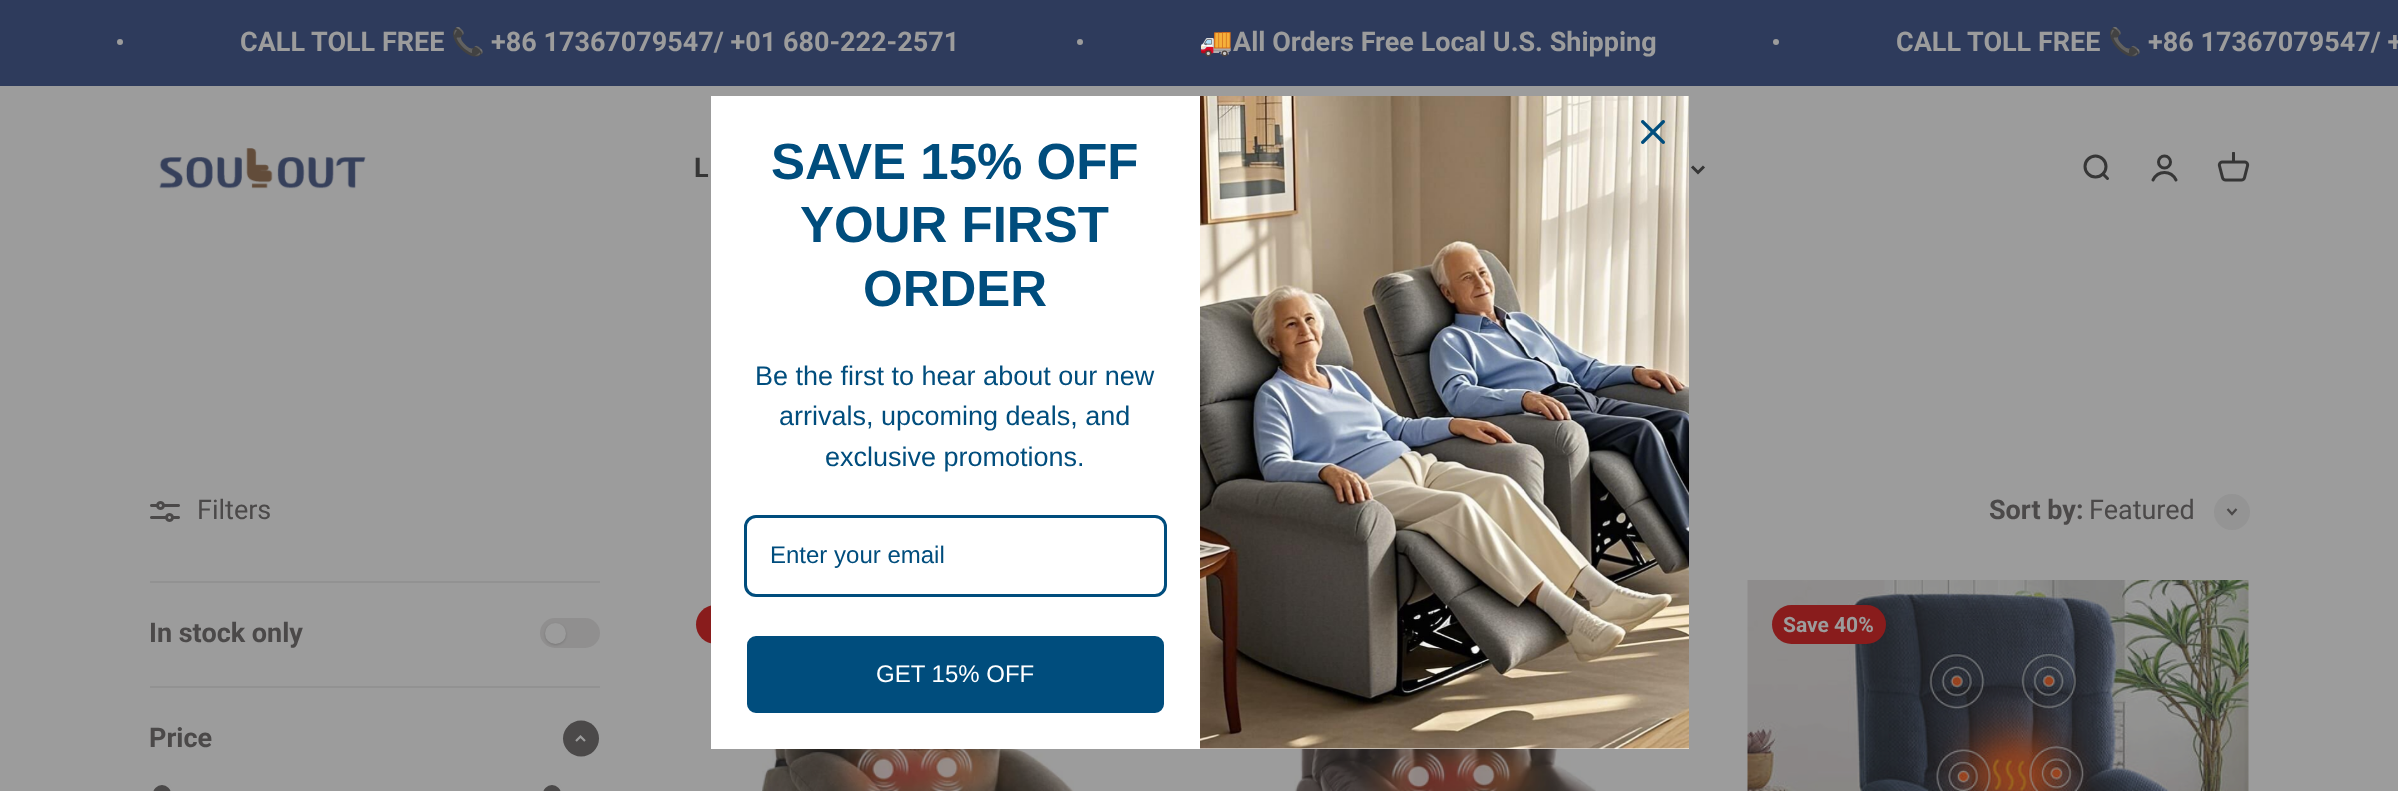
<svg xmlns="http://www.w3.org/2000/svg" width="2398" height="791" viewBox="0 0 2398 791">
  <style>
    .t1 { font: bold 27px Roboto; fill: #9c9c9c; }
    .t2 { font: bold 27px Noto Color Emoji; fill: #9c9c9c; }
    .t3 { font: bold 27px Roboto; fill: #363636; }
    .t4 { font: bold 51px Liberation Sans; fill: #004d7d; }
    .t5 { font: 27px Liberation Sans; fill: #004d7d; }
    .t6 { font: 24px Liberation Sans; fill: #004d7d; }
    .t7 { font: 24px Liberation Sans; fill: #fff; }
    .t8 { font: 27px Roboto; fill: #4b4949; }
    .t9 { font: bold 27px Roboto; fill: #4b4949; }
    .t10 { font: bold 21px Roboto; fill: #9c9c9c; }
  </style>
  <rect width="100%" height="100%" fill="#9c9c9c"/>
  <rect x="0" y="0" width="2398" height="86" fill="#2e3b5c"/>
  <circle cx="120" cy="42" r="3" fill="#9c9c9c"/>
  <text x="240" y="51" class="t1">CALL TOLL FREE</text>
  <text x="451" y="51" class="t2">📞</text>
  <text x="491" y="51" class="t1">+86 17367079547/ +01 680-222-2571</text>
  <circle cx="1080" cy="42" r="3" fill="#9c9c9c"/>
  <text x="1199" y="51" class="t2">🚚</text>
  <text x="1233" y="51" class="t1">All Orders Free Local U.S. Shipping</text>
  <circle cx="1776" cy="42" r="3" fill="#9c9c9c"/>
  <text x="1896" y="51" class="t1">CALL TOLL FREE</text>
  <text x="2108" y="51" class="t2">📞</text>
  <text x="2148" y="51" class="t1">+86 17367079547/ +</text>
  <image x="159" y="148" width="207" height="41" href="images/1.png"/>
  <text x="694" y="177" class="t3">L</text>
  <path d="M1692 166.5L1698 172.5L1704 166.5" fill="none" stroke="#363636" stroke-width="3"/>
  <circle cx="2095.5" cy="166.5" r="10.5" fill="none" stroke="#363636" stroke-width="3"/>
  <path d="M2103 174L2107.5 178.5" fill="none" stroke="#363636" stroke-width="3" stroke-linecap="round" stroke-linejoin="round"/>
  <circle cx="2164.5" cy="162" r="6" fill="none" stroke="#363636" stroke-width="3"/>
  <path d="M2153 180C2158 170 2171 170 2176 180" fill="none" stroke="#363636" stroke-width="3" stroke-linecap="round"/>
  <image x="2217" y="152" width="33" height="30" href="images/2.png"/>
  <rect x="1200" y="748" width="489" height="1" fill="#fff"/>
  <image x="1200" y="96" width="489" height="653" href="images/4.png"/>
  <image x="1641" y="120" width="24" height="24" href="images/3.png"/>
  <rect x="696" y="605" width="114" height="39" rx="19.5" fill="#891c1c"/>
  <rect x="711" y="96" width="489" height="653" fill="#fff"/>
  <text x="771" y="179" class="t4">SAVE 15% OFF</text>
  <text x="800" y="242" class="t4">YOUR FIRST</text>
  <text x="863" y="306" class="t4">ORDER</text>
  <text x="755" y="385" class="t5">Be the first to hear about our new</text>
  <text x="779" y="425" class="t5">arrivals, upcoming deals, and</text>
  <text x="825" y="466" class="t5">exclusive promotions.</text>
  <rect x="745.5" y="516.5" width="420" height="79" rx="10.5" fill="none" stroke="#004d7d" stroke-width="3"/>
  <text x="770" y="563" class="t6">Enter your email</text>
  <rect x="745.5" y="634.5" width="420" height="80" rx="10.5" fill="#004d7d" stroke="#fff" stroke-width="3"/>
  <text x="876" y="682" class="t7">GET 15% OFF</text>
  <image x="150" y="501" width="30" height="21" href="images/5.png"/>
  <text x="197" y="519" class="t8">Filters</text>
  <text x="1989" y="519" class="t9">Sort by:</text>
  <text x="2089" y="519" class="t8">Featured</text>
  <circle cx="2232" cy="512" r="18" fill="#949494"/>
  <path d="M2227.5 509L2232 514L2236.5 509" fill="none" stroke="#4b4949" stroke-width="2.2"/>
  <rect x="150" y="581" width="450" height="2" fill="#929292"/>
  <rect x="150" y="686" width="450" height="2" fill="#929292"/>
  <text x="149" y="642" class="t9">In stock only</text>
  <rect x="540" y="618" width="60" height="30" rx="15" fill="#908f8f"/>
  <rect x="545" y="624" width="21" height="21" rx="10.5" fill="#1c1c1c33" filter="blur(1px)"/>
  <circle cx="555.5" cy="633.5" r="10.5" fill="#9c9c9c"/>
  <text x="149" y="747" class="t9">Price</text>
  <path d="M581 756.5C571.5 756.5 563 748.5 563 738.5C563 728.5 571.5 720.5 581 720.5C591 720.5 599 728.5 599 738.5C599 748.5 591 756.5 581 756.5Z" fill="#4b4949"/>
  <path d="M585 741L580.5 736.5L576 741" fill="none" stroke="#9c9c9c" stroke-width="2.2"/>
  <circle cx="162" cy="794" r="10.5" fill="#4b4949" stroke="#9c9c9c" stroke-width="3"/>
  <circle cx="552" cy="794" r="10.5" fill="#4b4949" stroke="#9c9c9c" stroke-width="3"/>
  <image x="762" y="749" width="312" height="42" href="images/6.png"/>
  <image x="1747" y="580" width="502" height="211" href="images/7.png"/>
  <rect x="1772" y="605" width="114" height="39" rx="19.5" fill="#891c1c"/>
  <text x="1783" y="632" class="t10">Save 40%</text>
  <image x="1294" y="749" width="302" height="42" href="images/8.png"/>
</svg>
